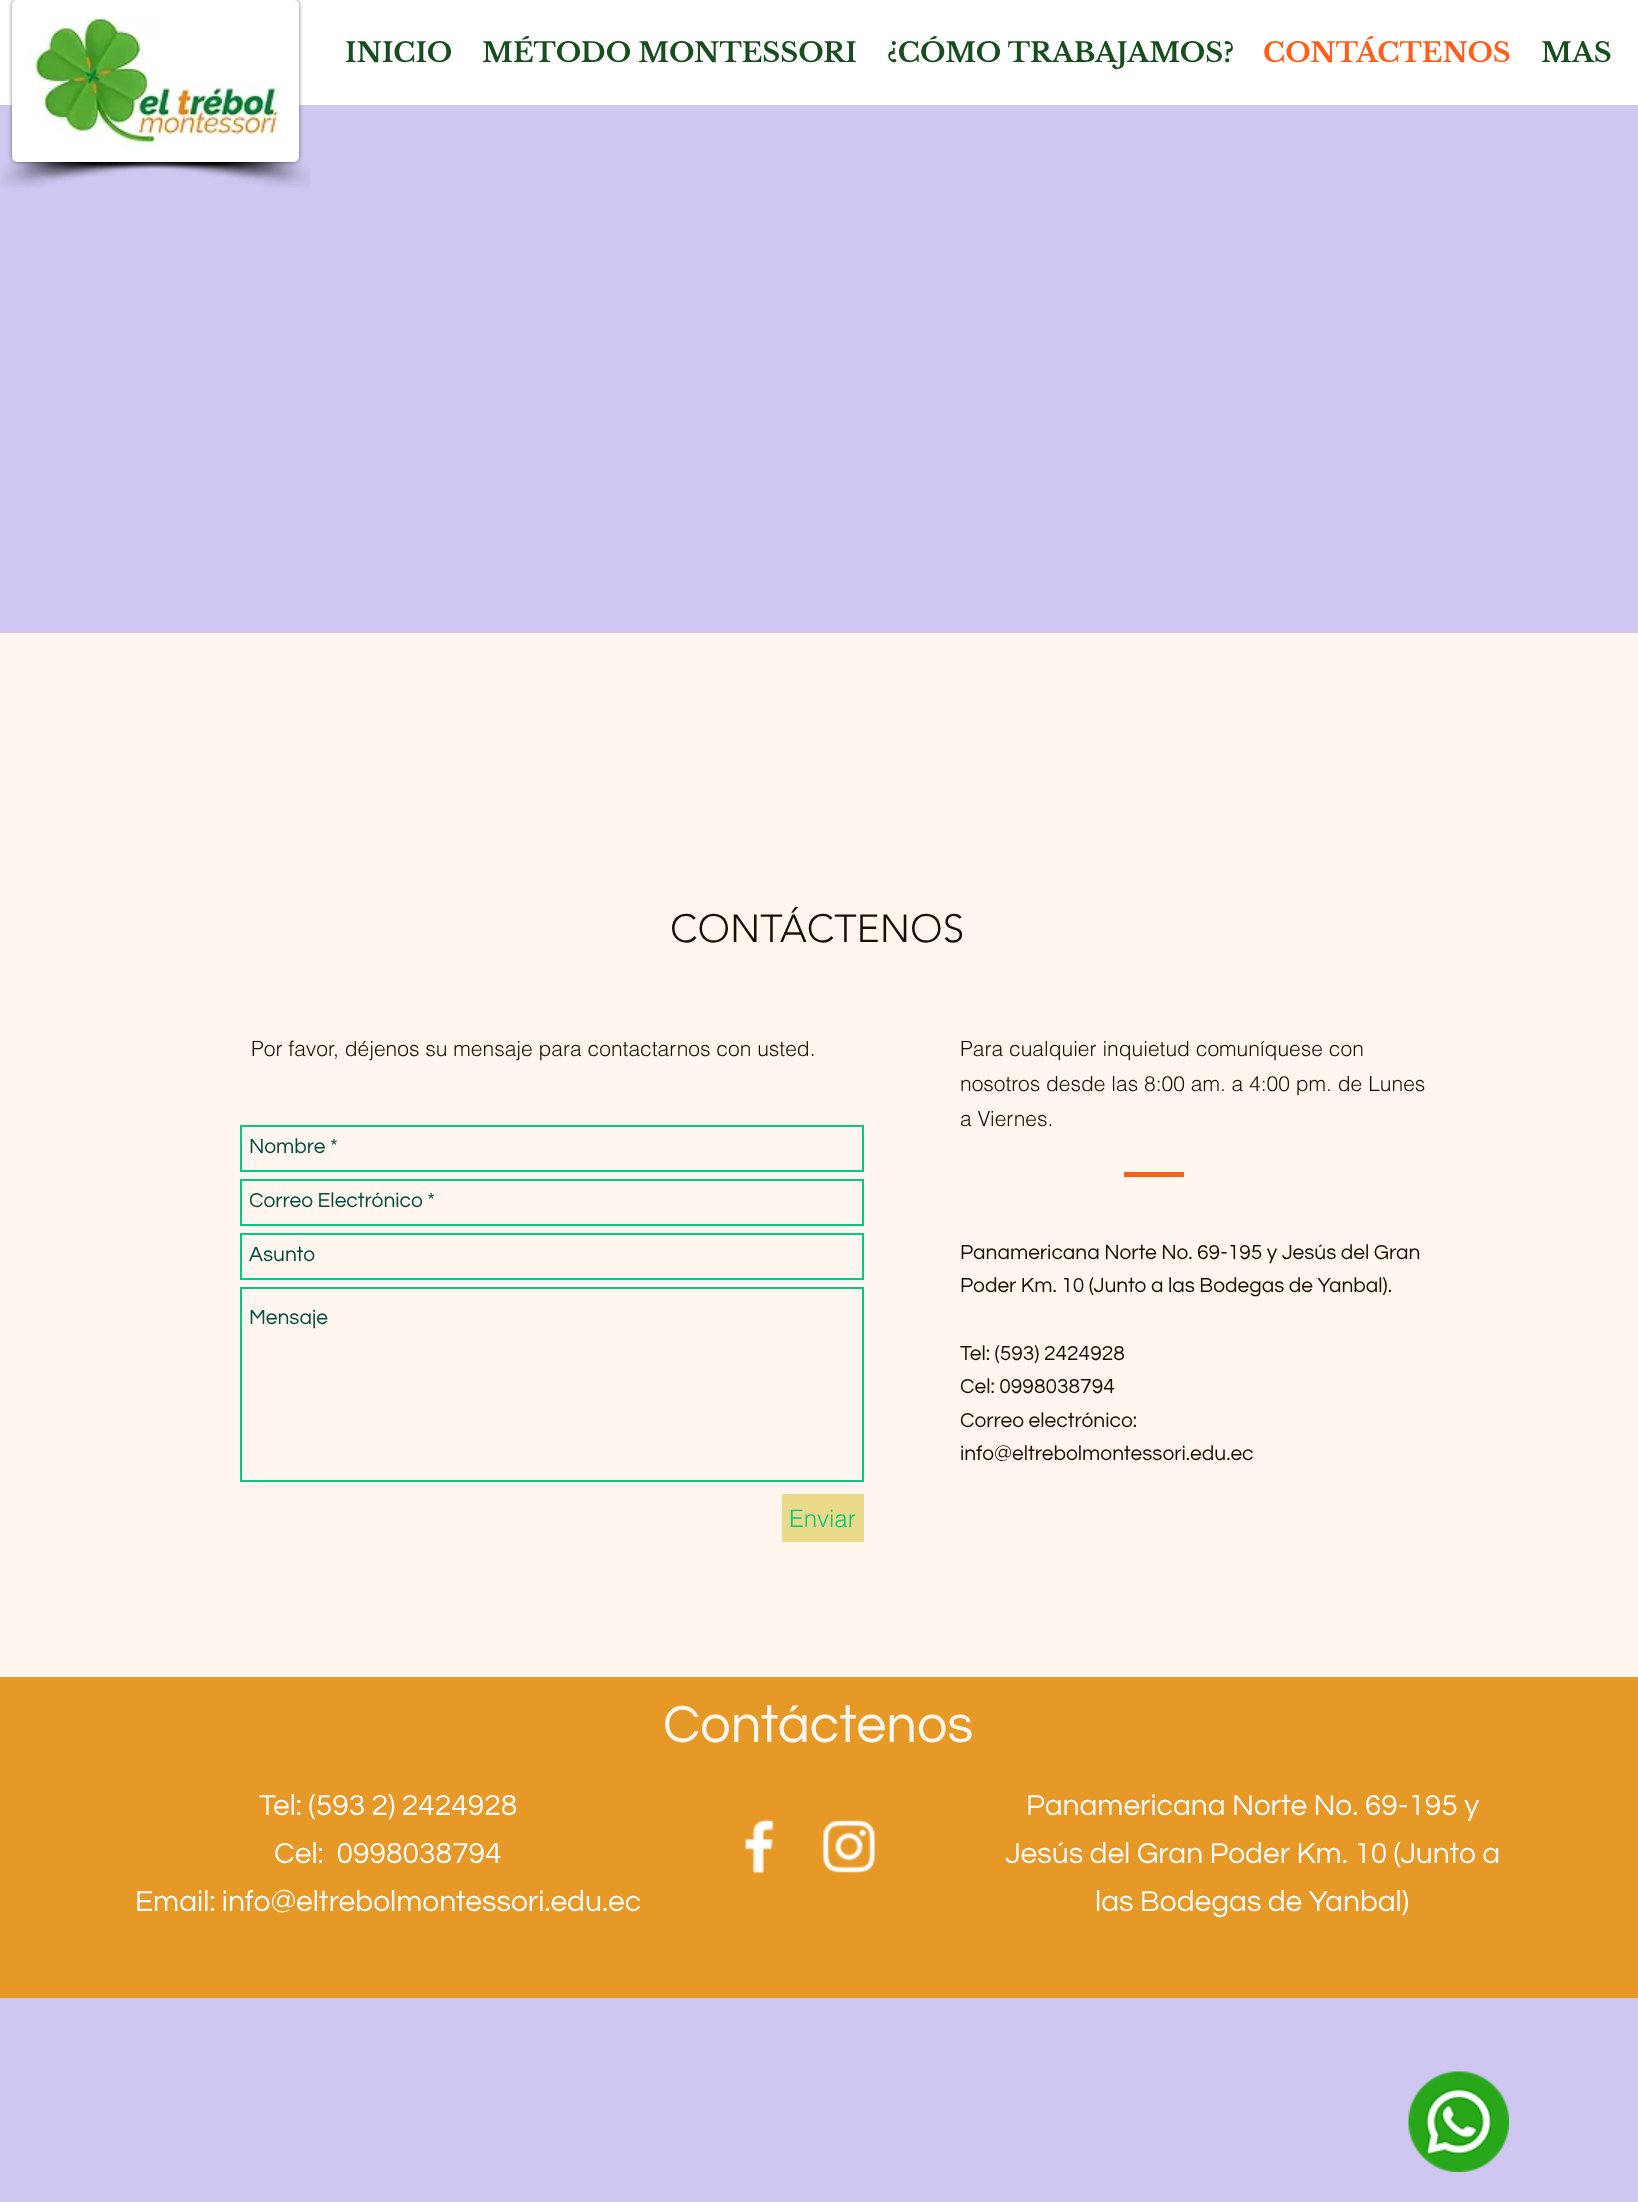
<svg xmlns="http://www.w3.org/2000/svg" width="1638" height="2202" viewBox="0 0 1638 2202">
  <style>
    .t1 { font: bold 27px Libre Baskerville; fill: #184d20; }
    .t2 { font: bold 27px Libre Baskerville; fill: #ff5e1a; }
    .t3 { font: 300 39px 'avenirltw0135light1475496'; fill: #1d0e03; }
    .t4 { font: 300 21px helvetica; fill: #1d0e03; }
    .t5 { font: 21px Questrial; fill: #014b3f; }
    .t6 { font: 300 24px helvetica; fill: #02ca81; }
    .t7 { font: 21px Questrial; fill: #1d0e03; }
    .t8 { font: 54px Questrial; fill: #fff6ef; }
    .t9 { font: 30px Questrial; fill: #fafafa; }
  </style>
  <rect width="100%" height="100%" fill="#cfc7f2"/>
  <rect x="0" y="0" width="1638" height="105" fill="#fff"/>
  <rect x="12" y="0" width="287" height="162" rx="5" fill="#00000080" filter="blur(2px)"/>
  <rect x="13.5" y="1.5" width="284" height="159" rx="3.5" fill="#fff" stroke="#fff" stroke-width="3"/>
  <image x="27" y="15" width="253" height="132" href="images/1.png"/>
  <image x="0" y="162" width="229" height="26" href="images/2.png"/>
  <image x="120" y="162" width="191" height="26" href="images/3.png"/>
  <text x="345" y="62" class="t1">INICIO</text>
  <text x="482" y="62" class="t1">MÉTODO MONTESSORI</text>
  <text x="887" y="62" class="t1">¿CÓMO TRABAJAMOS?</text>
  <text x="1263" y="62" class="t2">CONTÁCTENOS</text>
  <text x="1541" y="62" class="t1">MAS</text>
  <rect x="0" y="633" width="1638" height="1044" fill="#fff6ef"/>
  <text x="670" y="942" class="t3">CONTÁCTENOS</text>
  <text x="251" y="1056" class="t4">Por favor, déjenos su mensaje para contactarnos con usted.</text>
  <text x="960" y="1056" class="t4">Para cualquier inquietud comuníquese con</text>
  <text x="960" y="1091" class="t4">nosotros desde las 8:00 am. a 4:00 pm. de Lunes</text>
  <text x="960" y="1126" class="t4">a Viernes.</text>
  <rect x="241" y="1126" width="622" height="45" fill="none" stroke="#02ca81" stroke-width="2"/>
  <text x="249" y="1153" class="t5">Nombre *</text>
  <rect x="241" y="1180" width="622" height="45" fill="none" stroke="#02ca81" stroke-width="2"/>
  <text x="249" y="1207" class="t5">Correo Electrónico *</text>
  <rect x="241" y="1234" width="622" height="45" fill="none" stroke="#02ca81" stroke-width="2"/>
  <text x="249" y="1261" class="t5">Asunto</text>
  <rect x="241" y="1288" width="622" height="193" fill="none" stroke="#02ca81" stroke-width="2"/>
  <text x="249" y="1324" class="t5">Mensaje</text>
  <rect x="782" y="1494" width="82" height="48" fill="#e9db89"/>
  <text x="789" y="1527" class="t6">Enviar</text>
  <rect x="1124" y="1172" width="60" height="5" fill="#ff5e1a"/>
  <text x="960" y="1259" class="t7">Panamericana Norte No. 69-195 y Jesús del Gran</text>
  <text x="960" y="1292" class="t7">Poder Km. 10 (Junto a las Bodegas de Yanbal).</text>
  <text x="960" y="1360" class="t7">Tel: (593) 2424928</text>
  <text x="960" y="1393" class="t7">Cel: 0998038794</text>
  <text x="960" y="1427" class="t7">Correo electrónico:</text>
  <text x="960" y="1460" class="t7">info@eltrebolmontessori.edu.ec</text>
  <rect x="0" y="1677" width="1638" height="321" fill="#e69927"/>
  <text x="663" y="1742" class="t8">Contáctenos</text>
  <text x="259" y="1815" class="t9">Tel: (593 2) 2424928</text>
  <text x="274" y="1863" class="t9" xml:space="preserve">Cel:  0998038794</text>
  <text x="135" y="1911" class="t9">Email: info@eltrebolmontessori.edu.ec</text>
  <image x="744" y="1819" width="31" height="55" href="images/4.png"/>
  <image x="822" y="1819" width="54" height="55" href="images/5.png"/>
  <text x="1026" y="1815" class="t9">Panamericana Norte No. 69-195 y</text>
  <text x="1005" y="1863" class="t9">Jesús del Gran Poder Km. 10 (Junto a</text>
  <text x="1095" y="1911" class="t9">las Bodegas de Yanbal)</text>
  <image x="1408" y="2071" width="101" height="101" href="images/6.png"/>
</svg>
